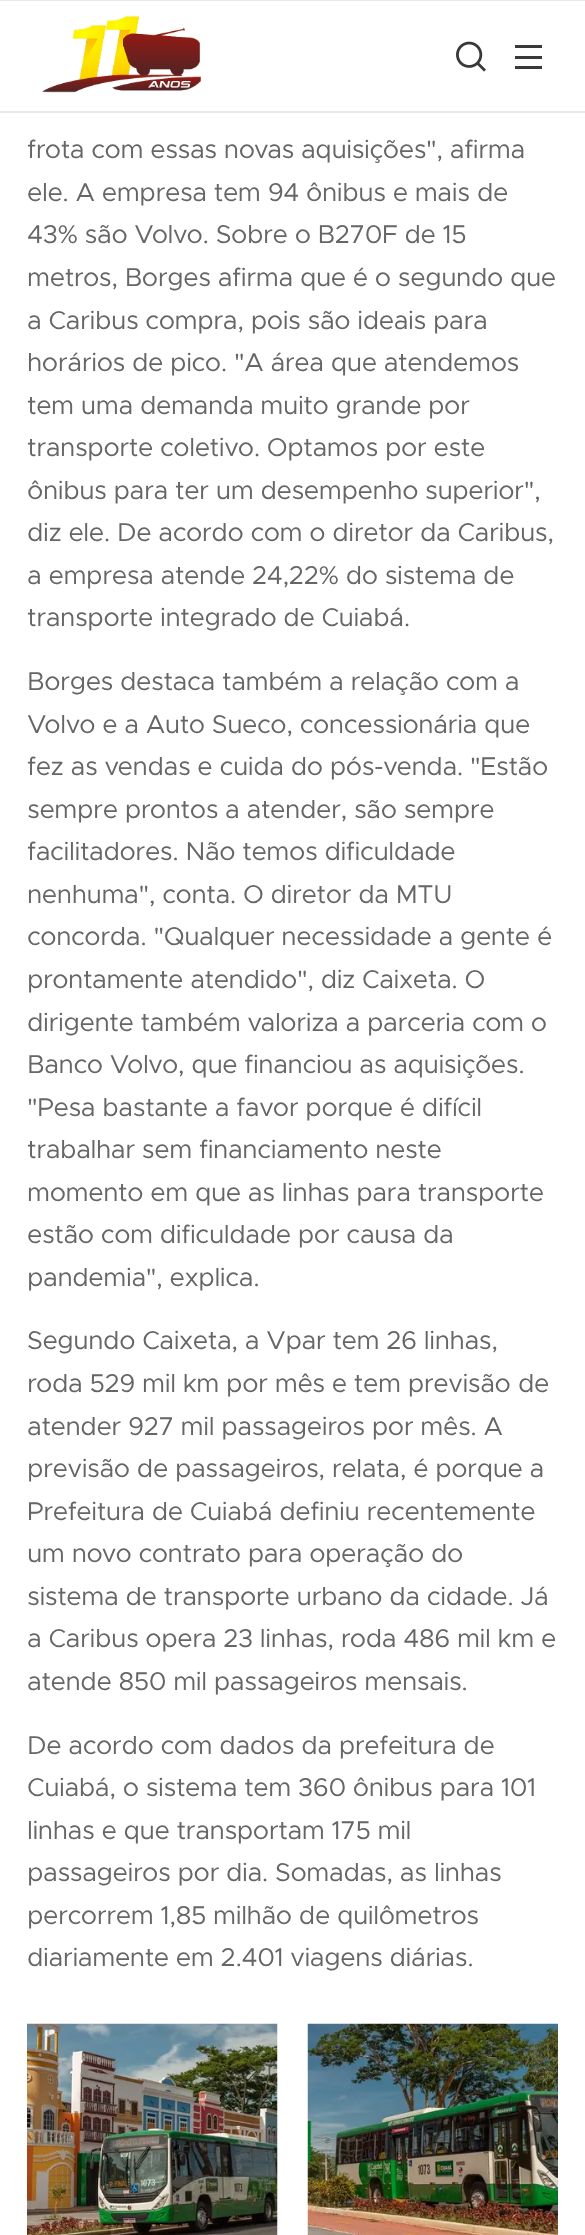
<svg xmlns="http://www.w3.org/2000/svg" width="585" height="2235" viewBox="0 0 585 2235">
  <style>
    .t1 { font: 25.8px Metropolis; letter-spacing: -0.4px; fill: #666; }
  </style>
  <rect width="100%" height="100%" fill="#fff"/>
  <rect x="0" y="111" width="585" height="2" fill="#e8e8e8"/>
  <rect x="0" y="0" width="585" height="1" fill="#e8e8e8"/>
  <image x="456" y="41" width="30" height="31" href="images/1.png"/>
  <rect x="515" y="56" width="27" height="3" fill="#393939"/>
  <rect x="515" y="45" width="27" height="3" fill="#393939"/>
  <rect x="515" y="66" width="27" height="3" fill="#393939"/>
  <image x="42" y="15" width="160" height="78" href="images/2.png"/>
  <text x="27" y="158" class="t1">frota com essas novas aquisições", afirma</text>
  <text x="27" y="201" class="t1">ele. A empresa tem 94 ônibus e mais</text>
  <text x="477" y="201" class="t1">de</text>
  <text x="27" y="243" class="t1">43% são Volvo. Sobre o B270F de 15</text>
  <text x="27" y="286" class="t1">metros, Borges afirma que é o segundo que</text>
  <text x="27" y="329" class="t1">a Caribus compra, pois são ideais para</text>
  <text x="27" y="371" class="t1">horários de pico. "A área que atendemos</text>
  <text x="27" y="414" class="t1">tem uma demanda muito grande</text>
  <text x="428" y="414" class="t1">por</text>
  <text x="27" y="456" class="t1">transporte coletivo. Optamos por este</text>
  <text x="27" y="499" class="t1">ônibus para ter um desempenho</text>
  <text x="425" y="499" class="t1">superior",</text>
  <text x="27" y="541" class="t1">diz ele. De acordo com o diretor da Caribus,</text>
  <text x="27" y="584" class="t1">a empresa atende 24,22% do sistema de</text>
  <text x="27" y="626" class="t1">transporte integrado de Cuiabá.</text>
  <text x="27" y="690" class="t1">Borges destaca também a relação com a</text>
  <text x="27" y="733" class="t1">Volvo e a Auto Sueco, concessionária que</text>
  <text x="27" y="775" class="t1">fez as vendas e cuida do pós-venda. "Estão</text>
  <text x="27" y="818" class="t1">sempre prontos a atender, são sempre</text>
  <text x="27" y="860" class="t1">facilitadores. Não temos dificuldade</text>
  <text x="27" y="903" class="t1">nenhuma", conta. O diretor da MTU</text>
  <text x="27" y="945" class="t1">concorda. "Qualquer necessidade a gente é</text>
  <text x="27" y="988" class="t1">prontamente atendido", diz Caixeta. O</text>
  <text x="27" y="1031" class="t1">dirigente também valoriza a parceria com o</text>
  <text x="27" y="1073" class="t1">Banco Volvo, que financiou as aquisições.</text>
  <text x="27" y="1116" class="t1">"Pesa bastante a favor porque é difícil</text>
  <text x="27" y="1158" class="t1">trabalhar sem financiamento neste</text>
  <text x="27" y="1201" class="t1">momento em que as linhas para transporte</text>
  <text x="27" y="1243" class="t1">estão com dificuldade por causa da</text>
  <text x="27" y="1286" class="t1">pandemia", explica.</text>
  <text x="27" y="1349" class="t1">Segundo Caixeta, a Vpar tem 26 linhas,</text>
  <text x="27" y="1392" class="t1">roda 529 mil km por mês e tem previsão</text>
  <text x="518" y="1392" class="t1">de</text>
  <text x="27" y="1435" class="t1">atender 927 mil passageiros por mês. A</text>
  <text x="27" y="1477" class="t1">previsão de passageiros, relata, é porque a</text>
  <text x="27" y="1520" class="t1">Prefeitura de Cuiabá definiu recentemente</text>
  <text x="27" y="1562" class="t1">um novo contrato para operação do</text>
  <text x="27" y="1605" class="t1">sistema de transporte urbano da cidade. Já</text>
  <text x="27" y="1647" class="t1">a Caribus opera 23 linhas, roda 486 mil km e</text>
  <text x="27" y="1690" class="t1">atende 850 mil passageiros mensais.</text>
  <text x="27" y="1754" class="t1">De acordo com dados da prefeitura de</text>
  <text x="27" y="1796" class="t1">Cuiabá, o sistema tem 360 ônibus para</text>
  <text x="501" y="1796" class="t1">101</text>
  <text x="27" y="1839" class="t1">linhas e que transportam 175 mil</text>
  <text x="27" y="1881" class="t1">passageiros por dia. Somadas, as</text>
  <text x="434" y="1881" class="t1">linhas</text>
  <text x="27" y="1924" class="t1">percorrem 1,85 milhão de quilômetros</text>
  <text x="27" y="1966" class="t1">diariamente em 2.401 viagens diárias.</text>
  <image x="27" y="2023" width="251" height="212" href="images/3.png"/>
  <image x="307" y="2023" width="251" height="212" href="images/4.png"/>
</svg>
